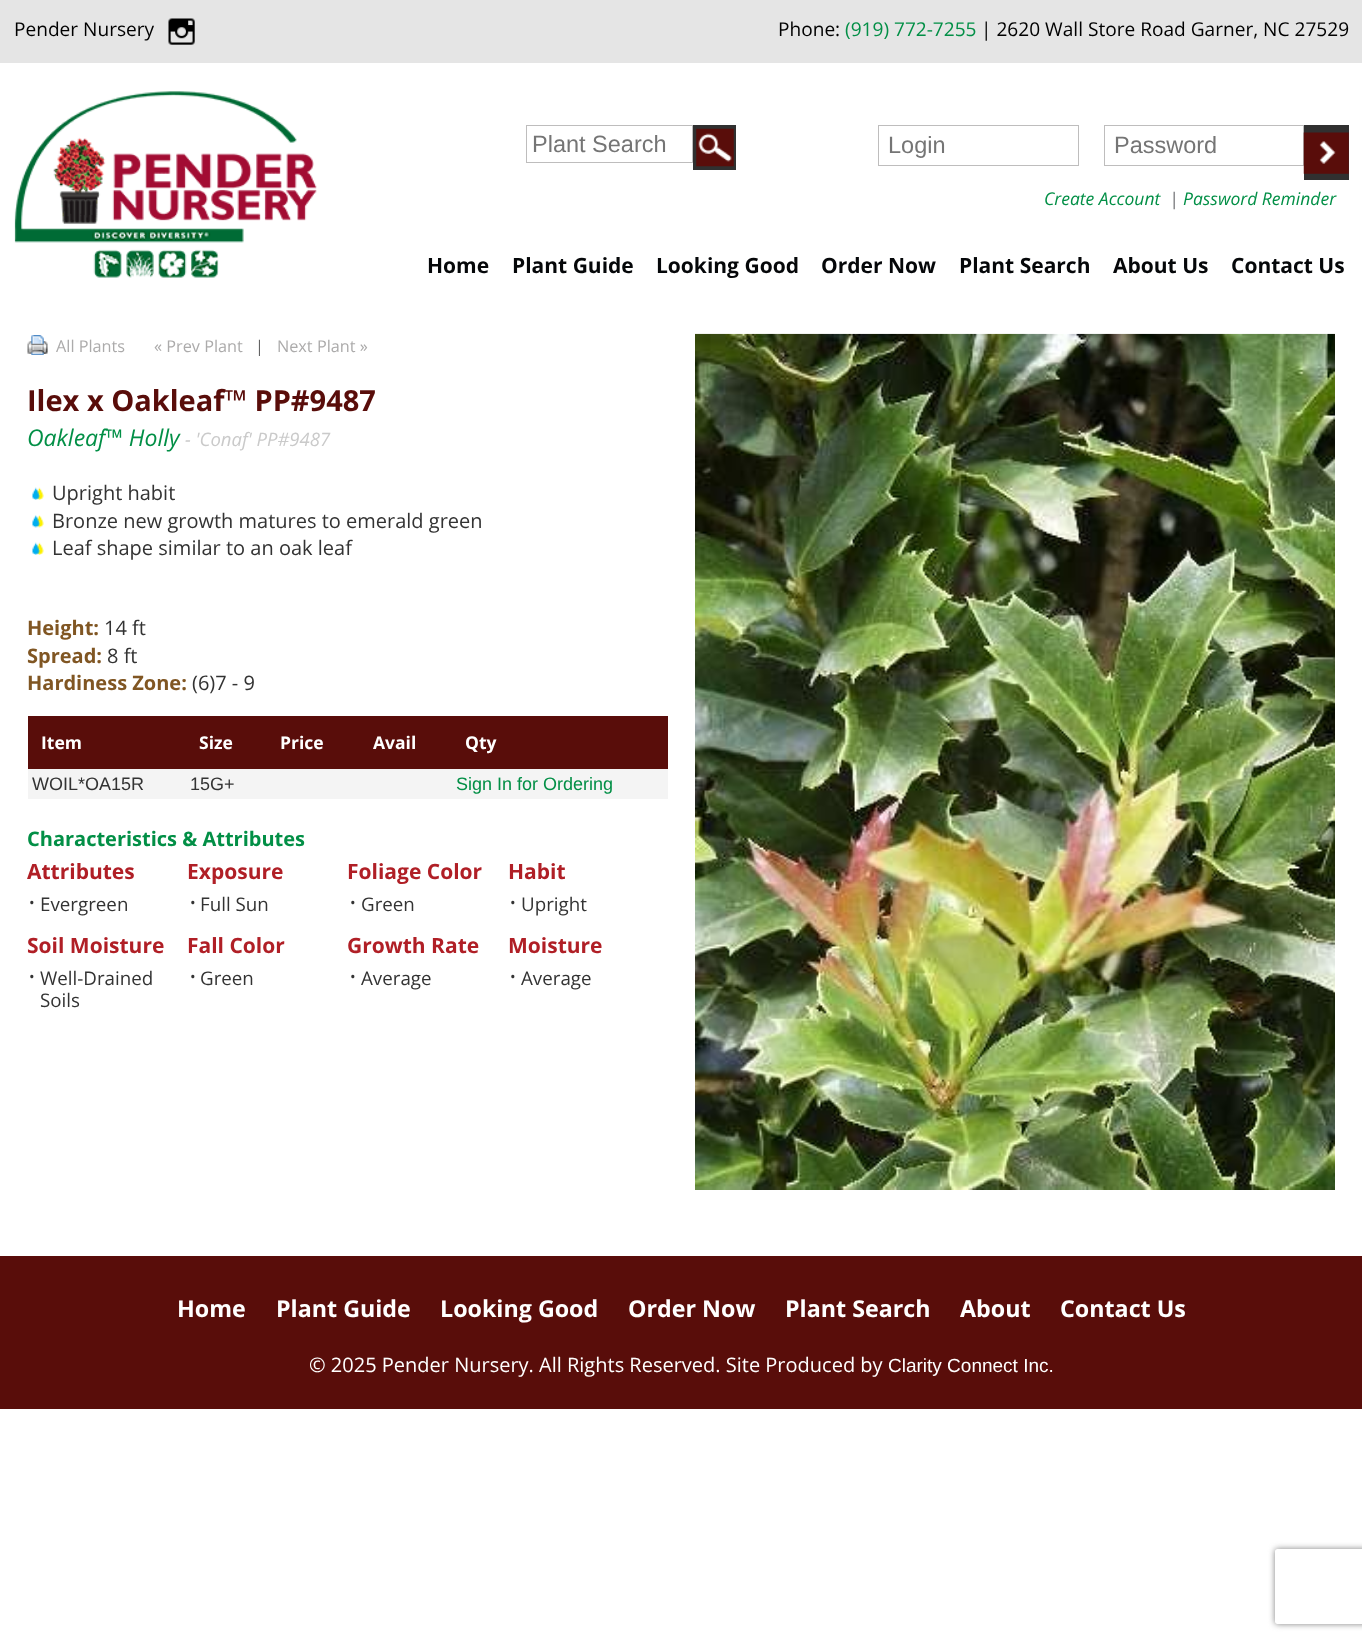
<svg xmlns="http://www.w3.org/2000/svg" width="1362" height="1641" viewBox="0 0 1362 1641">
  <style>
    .t1 { font: 19.1px Open Sans; fill: #000; }
    .t2 { font: 19.1px Open Sans; fill: #028f46; }
    .t3 { font: 23.5px Liberation Sans; fill: #757575; }
    .t4 { font: italic 17.5px Open Sans; fill: #028f46; }
    .t5 { font: italic 17.5px Open Sans; fill: #6d6e71; }
    .t6 { font: bold 21px Open Sans; fill: #050709; }
    .t7 { font: 16.25px Open Sans; fill: #acabab; }
    .t8 { font: 16.25px Open Sans; fill: #636364; }
    .t9 { font: bold 29px Open Sans; fill: #590d0a; }
    .t10 { font: italic 23px Open Sans; fill: #028f46; }
    .t11 { font: italic 18.5px Open Sans; fill: #cacaca; }
    .t12 { font: 20px Open Sans; fill: #333; }
    .t13 { font: bold 20px Open Sans; fill: #805623; }
    .t14 { font: bold 17.5px Open Sans; fill: #fff; }
    .t15 { font: 18px Liberation Sans; fill: #333; }
    .t16 { font: 18px Liberation Sans; fill: #028f46; }
    .t17 { font: bold 20px Open Sans; fill: #028f46; }
    .t18 { font: bold 21px Open Sans; fill: #b01f26; }
    .t19 { font: 15px Open Sans; fill: #333; }
    .t20 { font: 18.75px Open Sans; fill: #333; }
    .t21 { font: bold 23.25px Open Sans; fill: #fff; }
    .t22 { font: 20px Open Sans; fill: #fff; }
    .t23 { font: 19px Liberation Sans; fill: #fff; }
  </style>
  <defs>
    <clipPath id="clip1"><path d="M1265 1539H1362V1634H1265ZM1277.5 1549H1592.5C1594 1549 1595 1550 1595 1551.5V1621.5C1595 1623 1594 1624 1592.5 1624H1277.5C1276 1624 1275 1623 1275 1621.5V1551.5C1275 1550 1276 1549 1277.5 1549Z" clip-rule="evenodd"/></clipPath>
  </defs>
  <rect width="100%" height="100%" fill="#fff"/>
  <rect x="0" y="0" width="1362" height="63" fill="#e5e5e5"/>
  <text x="14" y="36" class="t1">Pender Nursery</text>
  <image x="168" y="18" width="27" height="27" href="images/1.png"/>
  <text x="778" y="36" class="t1">Phone:</text>
  <text x="845" y="36" class="t2">(919) 772-7255</text>
  <text x="981" y="36" class="t1">| 2620 Wall Store Road Garner, NC 27529</text>
  <image x="14" y="91" width="303" height="187" href="images/2.png"/>
  <rect x="526.5" y="125.5" width="166" height="37" fill="none" stroke="#bebdbd"/>
  <text x="532" y="152" class="t3">Plant Search</text>
  <rect x="693" y="125" width="43" height="45" fill="#303030"/>
  <image x="696" y="128" width="38" height="39" href="images/3.png"/>
  <rect x="878.5" y="125.5" width="200" height="40" fill="none" stroke="#bebdbd"/>
  <text x="888" y="153" class="t3">Login</text>
  <rect x="1104.5" y="125.5" width="199" height="40" fill="none" stroke="#bebdbd"/>
  <text x="1114" y="153" class="t3">Password</text>
  <rect x="1304" y="125" width="45" height="55" fill="#303030"/>
  <image x="1303" y="132" width="46" height="42" href="images/4.png"/>
  <text x="1044" y="205" class="t4">Create Account</text>
  <text x="1169" y="205" class="t5">|</text>
  <text x="1183" y="205" class="t4">Password Reminder</text>
  <text x="427" y="273" class="t6">Home</text>
  <text x="512" y="273" class="t6">Plant Guide</text>
  <text x="656" y="273" class="t6">Looking Good</text>
  <text x="821" y="273" class="t6">Order Now</text>
  <text x="959" y="273" class="t6">Plant Search</text>
  <text x="1113" y="273" class="t6">About Us</text>
  <text x="1231" y="273" class="t6">Contact Us</text>
  <image x="27" y="335" width="21" height="20" href="images/5.png"/>
  <text x="56" y="352" class="t7">All Plants</text>
  <text x="154" y="352" class="t7">« Prev Plant</text>
  <text x="255" y="352" class="t8">|</text>
  <text x="277" y="352" class="t7">Next Plant »</text>
  <text x="27" y="411" class="t9">Ilex x Oakleaf™ PP#9487</text>
  <text x="27" y="446" class="t10">Oakleaf™ Holly</text>
  <text x="185" y="446" class="t11">- 'Conaf' PP#9487</text>
  <image x="32" y="487" width="12" height="13" href="images/6.png"/>
  <text x="52" y="500" class="t12">Upright habit</text>
  <image x="32" y="515" width="12" height="13" href="images/7.png"/>
  <text x="52" y="528" class="t12">Bronze new growth matures to emerald green</text>
  <image x="32" y="542" width="12" height="13" href="images/6.png"/>
  <text x="52" y="555" class="t12">Leaf shape similar to an oak leaf</text>
  <text x="27" y="635" class="t13">Height:</text>
  <text x="104" y="635" class="t12">14 ft</text>
  <text x="27" y="663" class="t13">Spread:</text>
  <text x="107" y="663" class="t12">8 ft</text>
  <text x="27" y="690" class="t13">Hardiness Zone:</text>
  <text x="192" y="690" class="t12">(6)7 - 9</text>
  <rect x="28" y="716" width="640" height="53" fill="#590d0a"/>
  <text x="41" y="749" class="t14">Item</text>
  <text x="199" y="749" class="t14">Size</text>
  <text x="280" y="749" class="t14">Price</text>
  <text x="373" y="749" class="t14">Avail</text>
  <text x="465" y="749" class="t14">Qty</text>
  <rect x="28" y="769" width="640" height="30" fill="#f4f4f4"/>
  <text x="32" y="790" class="t15">WOIL*OA15R</text>
  <text x="190" y="790" class="t15">15G+</text>
  <text x="456" y="790" class="t16">Sign In for Ordering</text>
  <text x="27" y="846" class="t17">Characteristics &amp; Attributes</text>
  <text x="27" y="879" class="t18">Attributes</text>
  <text x="29" y="908" class="t19">•</text>
  <text x="40" y="911" class="t20">Evergreen</text>
  <text x="187" y="879" class="t18">Exposure</text>
  <text x="190" y="908" class="t19">•</text>
  <text x="200" y="911" class="t20">Full Sun</text>
  <text x="347" y="879" class="t18">Foliage Color</text>
  <text x="350" y="908" class="t19">•</text>
  <text x="361" y="911" class="t20">Green</text>
  <text x="508" y="879" class="t18">Habit</text>
  <text x="510" y="908" class="t19">•</text>
  <text x="521" y="911" class="t20">Upright</text>
  <text x="27" y="953" class="t18">Soil Moisture</text>
  <text x="29" y="982" class="t19">•</text>
  <text x="40" y="985" class="t20">Well-Drained</text>
  <text x="40" y="1007" class="t20">Soils</text>
  <text x="187" y="953" class="t18">Fall Color</text>
  <text x="190" y="982" class="t19">•</text>
  <text x="200" y="985" class="t20">Green</text>
  <text x="347" y="953" class="t18">Growth Rate</text>
  <text x="350" y="982" class="t19">•</text>
  <text x="361" y="985" class="t20">Average</text>
  <text x="508" y="953" class="t18">Moisture</text>
  <text x="510" y="982" class="t19">•</text>
  <text x="521" y="985" class="t20">Average</text>
  <image x="695" y="333" width="640" height="857" href="images/8.png"/>
  <rect x="0" y="1256" width="1362" height="153" fill="#590d0a"/>
  <text x="177" y="1317" class="t21">Home</text>
  <text x="276" y="1317" class="t21">Plant Guide</text>
  <text x="440" y="1317" class="t21">Looking Good</text>
  <text x="628" y="1317" class="t21">Order Now</text>
  <text x="785" y="1317" class="t21">Plant Search</text>
  <text x="960" y="1317" class="t21">About</text>
  <text x="1060" y="1317" class="t21">Contact Us</text>
  <text x="309" y="1372" class="t22">© 2025 Pender Nursery. All Rights Reserved. Site Produced by</text>
  <text x="888" y="1372" class="t23">Clarity Connect Inc.</text>
  <g clip-path="url(#clip1)">
    <rect x="1275" y="1549" width="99" height="75" rx="2.5" fill="#808080" filter="blur(3px)"/>
  </g>
</svg>
